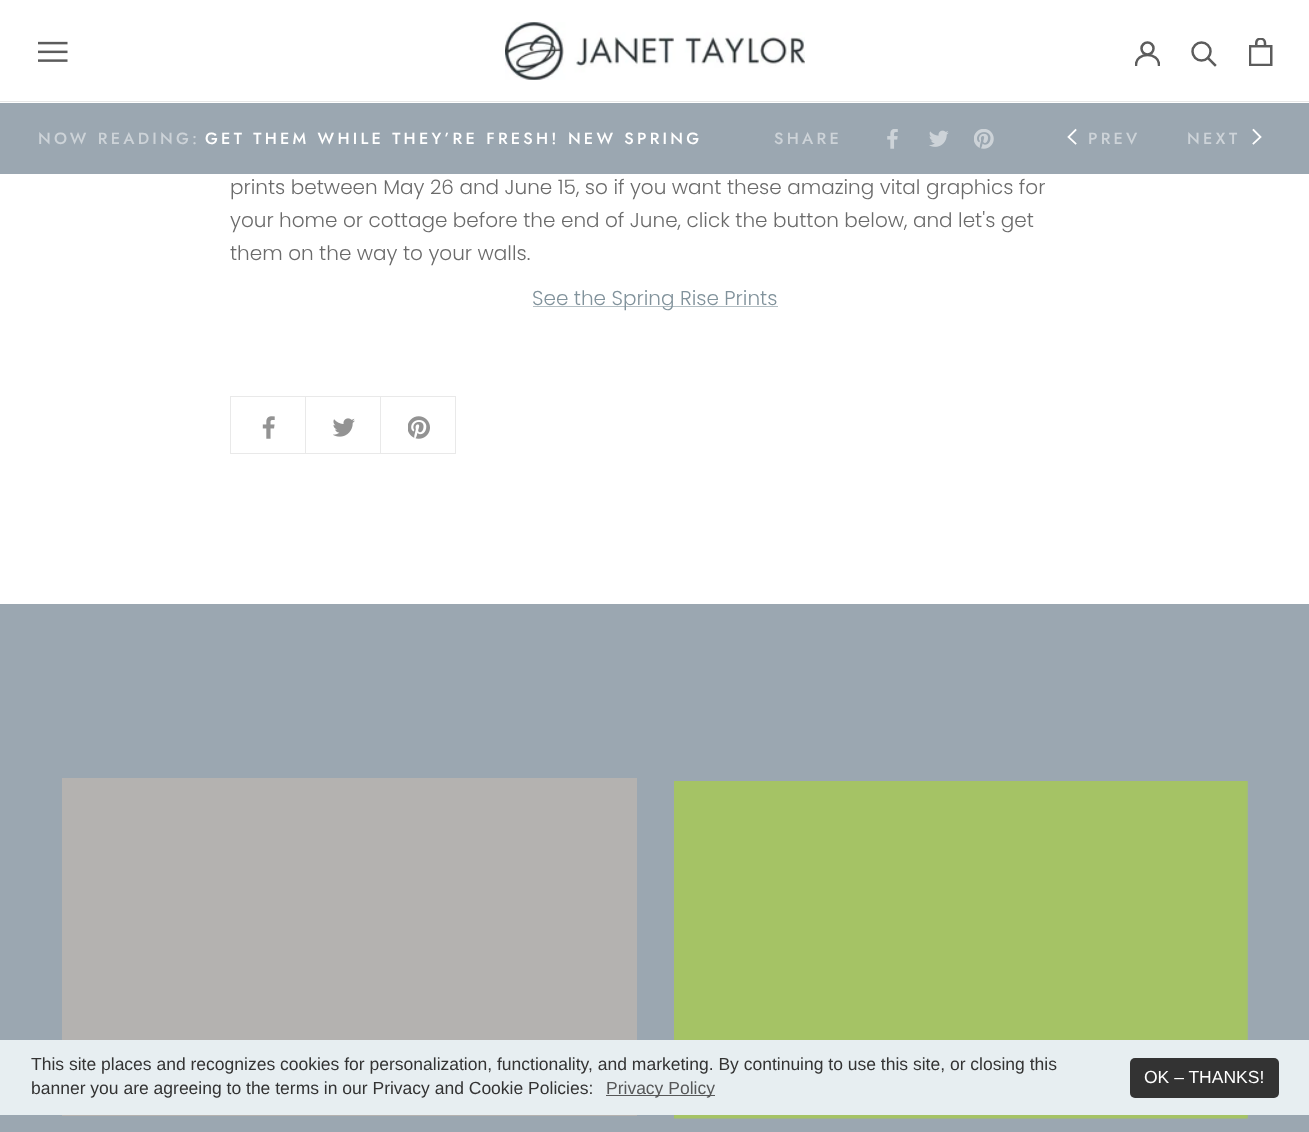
<svg xmlns="http://www.w3.org/2000/svg" width="1309" height="1132" viewBox="0 0 1309 1132">
  <style>
    .t1 { font: 500 16.25px Jost; letter-spacing: 3.25px; fill: #cdd3d8; }
    .t2 { font: 500 16.25px Jost; letter-spacing: 3.25px; fill: #fff; }
    .t3 { font: 300 20px Poppins; fill: #6b6b6b; }
    .t4 { font: 300 20px Poppins; fill: #81929b; }
    .t5 { font: 17.5px Liberation Sans; fill: #333; }
    .t6 { font: 17.5px Liberation Sans; fill: #575859; }
    .t7 { font: 17.5px Liberation Sans; fill: #fff; }
  </style>
  <defs>
    <clipPath id="clip1"><rect x="1135" y="41" width="25" height="25"/></clipPath>
  </defs>
  <rect width="100%" height="100%" fill="#fff"/>
  <rect x="0" y="101" width="1309" height="1" fill="#e7e7e7"/>
  <image x="38" y="41" width="30" height="21" href="images/1.png"/>
  <image x="505" y="22" width="300" height="58" href="images/2.png"/>
  <g clip-path="url(#clip1)">
    <path d="M1136 65C1136 51.5 1159 51.5 1159 65" fill="none" stroke="#5c5c5c" stroke-width="2.5" stroke-linecap="square"/>
  </g>
  <circle cx="1147.5" cy="48.5" r="6" fill="none" stroke="#5c5c5c" stroke-width="2.5"/>
  <path d="M1215 65L1208 58" fill="none" stroke="#5c5c5c" stroke-width="2.5" stroke-linecap="square"/>
  <circle cx="1201.5" cy="51.5" r="9" fill="none" stroke="#5c5c5c" stroke-width="2.5"/>
  <image x="1249" y="38" width="24" height="28" href="images/3.png"/>
  <rect x="0" y="103" width="1309" height="71" fill="#9ba7b1"/>
  <text x="38" y="144" class="t1">NOW READING:</text>
  <text x="205" y="144" class="t2">GET THEM WHILE THEY’RE FRESH! NEW SPRING</text>
  <text x="774" y="144" class="t1">SHARE</text>
  <image x="887" y="129" width="11" height="20" href="images/4.png"/>
  <image x="929" y="130" width="20" height="17" href="images/5.png"/>
  <image x="974" y="129" width="20" height="20" href="images/6.png"/>
  <path d="M1075.5 130L1068.5 137L1075.5 143.5" fill="none" stroke="#fff" stroke-width="1.8" stroke-linecap="square"/>
  <text x="1088" y="144" class="t1">PREV</text>
  <text x="1187" y="144" class="t1">NEXT</text>
  <path d="M1253.5 130L1260.5 137L1253.5 143.5" fill="none" stroke="#fff" stroke-width="1.8" stroke-linecap="square"/>
  <text x="230" y="194" class="t3">prints between May 26 and June 15, so if you want these amazing vital graphics for</text>
  <text x="230" y="227" class="t3">your home or cottage before the end of June, click the button below, and let's get</text>
  <text x="230" y="260" class="t3">them on the way to your walls.</text>
  <rect x="533" y="306" width="245" height="1" fill="#b3bec3"/>
  <text x="532" y="305" class="t4">See the Spring Rise Prints</text>
  <rect x="380" y="396" width="76" height="1" fill="#e9e9e9"/>
  <rect x="455" y="396" width="1" height="58" fill="#e9e9e9"/>
  <rect x="380" y="453" width="76" height="1" fill="#e9e9e9"/>
  <rect x="380" y="396" width="1" height="58" fill="#e9e9e9"/>
  <rect x="305" y="396" width="76" height="1" fill="#e9e9e9"/>
  <rect x="305" y="453" width="76" height="1" fill="#e9e9e9"/>
  <rect x="305" y="396" width="1" height="58" fill="#e9e9e9"/>
  <rect x="230" y="396" width="76" height="1" fill="#e9e9e9"/>
  <rect x="230" y="453" width="76" height="1" fill="#e9e9e9"/>
  <rect x="230" y="396" width="1" height="58" fill="#e9e9e9"/>
  <image x="262" y="416" width="13" height="23" href="images/7.png"/>
  <image x="333" y="418" width="22" height="19" href="images/8.png"/>
  <image x="408" y="416" width="22" height="23" href="images/9.png"/>
  <rect x="0" y="604" width="1309" height="528" fill="#9ba7b1"/>
  <rect x="62" y="778" width="575" height="338" fill="#b4b2b0"/>
  <image x="674" y="781" width="574" height="338" href="images/10.png"/>
  <rect x="0" y="1040" width="1309" height="75" fill="#e7eef1"/>
  <text x="31" y="1070" class="t5">This site places and recognizes cookies for personalization, functionality, and marketing. By continuing to use this site, or closing this</text>
  <text x="31" y="1094" class="t5">banner you are agreeing to the terms in our Privacy and Cookie Policies:</text>
  <rect x="606" y="1095" width="109" height="1" fill="#575859"/>
  <text x="606" y="1094" class="t6">Privacy Policy</text>
  <rect x="1130" y="1058" width="149" height="40" rx="5" fill="#333"/>
  <text x="1144" y="1083" class="t7">OK – THANKS!</text>
</svg>
